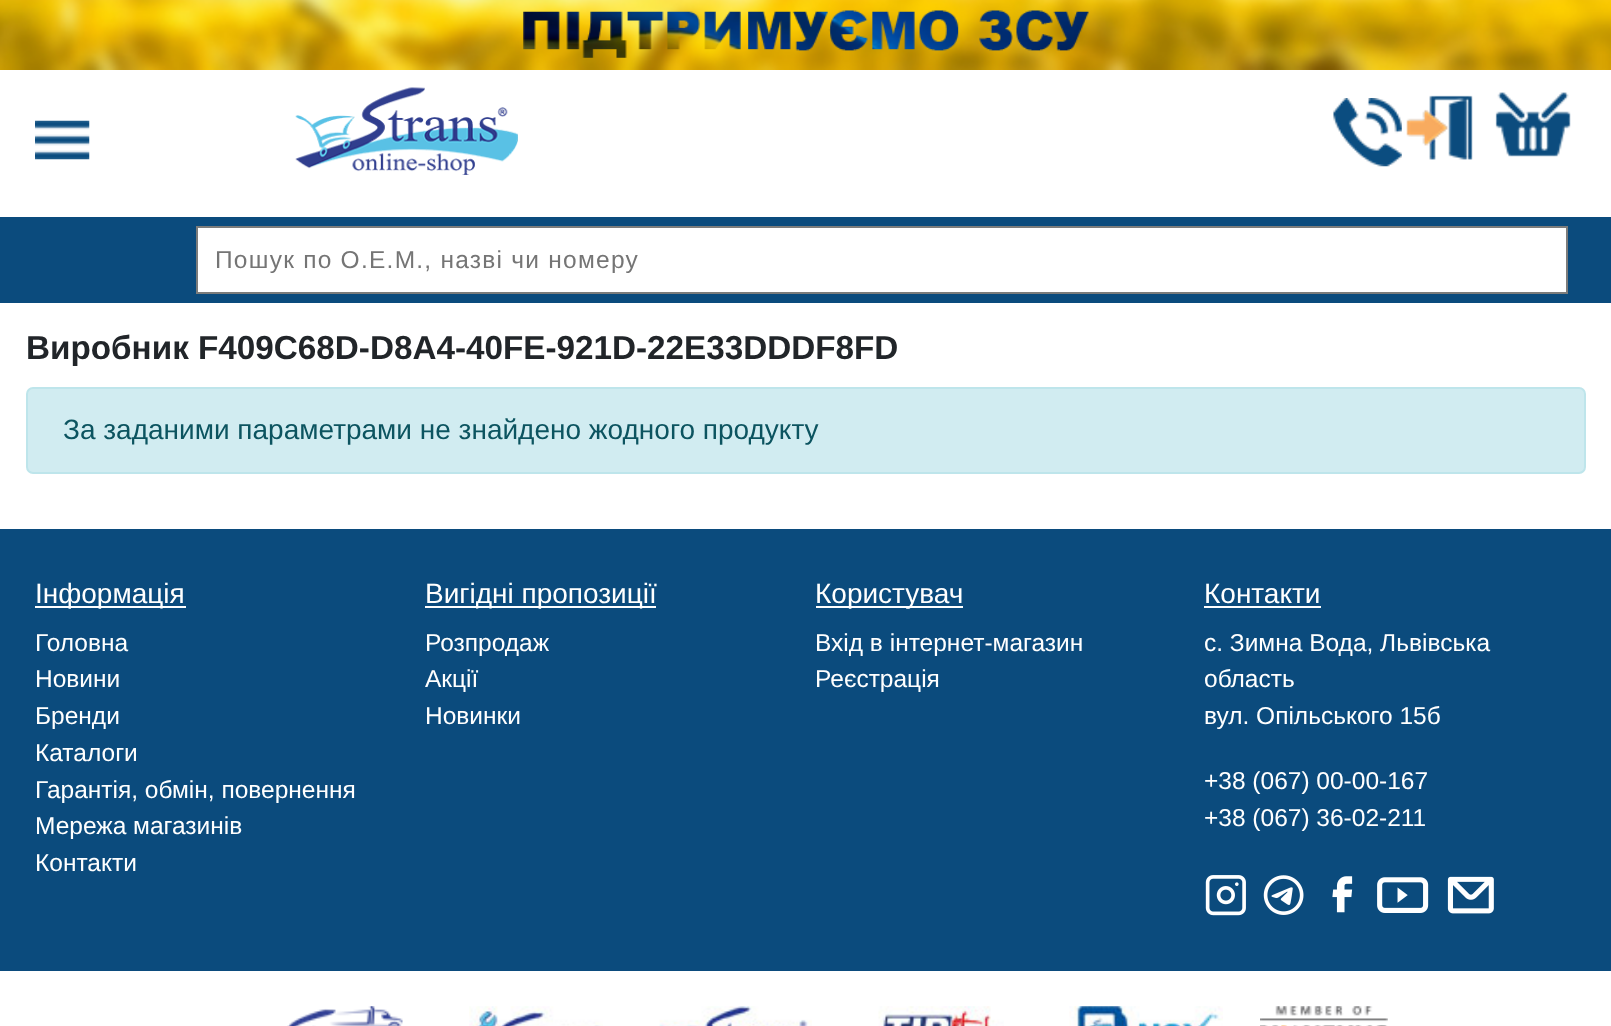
<svg xmlns="http://www.w3.org/2000/svg" width="1611" height="1026" viewBox="0 0 1611 1026">
  <style>
    .t1 { font: 24.5px Liberation Sans; letter-spacing: 1.25px; fill: #757575; }
    .t2 { font: bold 33.25px Liberation Sans; fill: #212529; }
    .t3 { font: 28px Liberation Sans; fill: #0c5460; }
    .t4 { font: 28px Liberation Sans; fill: #fff; }
    .t5 { font: 24.5px Liberation Sans; fill: #fff; }
  </style>
  <rect width="100%" height="100%" fill="#fff"/>
  <image x="0" y="0" width="1611" height="70" href="images/1.png"/>
  <image x="523" y="10" width="566" height="48" href="images/2.png"/>
  <image x="35" y="120" width="55" height="40" href="images/3.png"/>
  <image x="295" y="87" width="223" height="88" href="images/4.png"/>
  <image x="1333" y="98" width="69" height="69" href="images/5.png"/>
  <image x="1406" y="95" width="67" height="65" href="images/6.png"/>
  <image x="1495" y="92" width="76" height="65" href="images/7.png"/>
  <rect x="0" y="217" width="1611" height="86" fill="#0b4b7d"/>
  <rect x="197" y="227" width="1370" height="66" fill="#fff" stroke="#7c7c7b" stroke-width="2"/>
  <text x="215" y="268" class="t1">Пошук по О.Е.М., назві чи номеру</text>
  <text x="26" y="359" class="t2">Виробник F409C68D-D8A4-40FE-921D-22E33DDDF8FD</text>
  <rect x="27" y="388" width="1558" height="85" rx="6" fill="#d1ecf1" stroke="#bee5eb" stroke-width="2"/>
  <text x="63" y="439" class="t3">За заданими параметрами не знайдено жодного продукту</text>
  <rect x="0" y="529" width="1611" height="442" fill="#0b4b7d"/>
  <rect x="35" y="606" width="151" height="2" fill="#fff"/>
  <text x="35" y="603" class="t4">Інформація</text>
  <text x="35" y="651" class="t5">Головна</text>
  <text x="35" y="687" class="t5">Новини</text>
  <text x="35" y="724" class="t5">Бренди</text>
  <text x="35" y="761" class="t5">Каталоги</text>
  <text x="35" y="798" class="t5">Гарантія, обмін, повернення</text>
  <text x="35" y="834" class="t5">Мережа магазинів</text>
  <text x="35" y="871" class="t5">Контакти</text>
  <rect x="425" y="606" width="231" height="2" fill="#fff"/>
  <text x="425" y="603" class="t4">Вигідні пропозиції</text>
  <text x="425" y="651" class="t5">Розпродаж</text>
  <text x="425" y="687" class="t5">Акції</text>
  <text x="425" y="724" class="t5">Новинки</text>
  <rect x="816" y="606" width="147" height="2" fill="#fff"/>
  <text x="815" y="603" class="t4">Користувач</text>
  <text x="815" y="651" class="t5">Вхід в інтернет-магазин</text>
  <text x="815" y="687" class="t5">Реєстрація</text>
  <text x="1204" y="603" class="t4">Контакти</text>
  <rect x="1204" y="606" width="117" height="2" fill="#fff"/>
  <text x="1204" y="651" class="t5">с. Зимна Вода, Львівська</text>
  <text x="1204" y="687" class="t5">область</text>
  <text x="1204" y="724" class="t5">вул. Опільського 15б</text>
  <text x="1204" y="789" class="t5">+38 (067) 00-00-167</text>
  <text x="1204" y="826" class="t5">+38 (067) 36-02-211</text>
  <image x="1205" y="875" width="41" height="41" href="images/8.png"/>
  <image x="1263" y="875" width="41" height="40" href="images/9.png"/>
  <image x="1332" y="876" width="21" height="37" href="images/10.png"/>
  <image x="1377" y="877" width="52" height="36" href="images/11.png"/>
  <image x="1447" y="876" width="47" height="38" href="images/12.png"/>
  <image x="287" y="1006" width="116" height="20" href="images/13.png"/>
  <image x="469" y="1006" width="134" height="20" href="images/14.png"/>
  <image x="659" y="1006" width="153" height="20" href="images/15.png"/>
  <image x="878" y="1006" width="126" height="20" href="images/16.png"/>
  <image x="1069" y="1006" width="154" height="20" href="images/17.png"/>
  <image x="1260" y="1006" width="128" height="20" href="images/18.png"/>
</svg>
